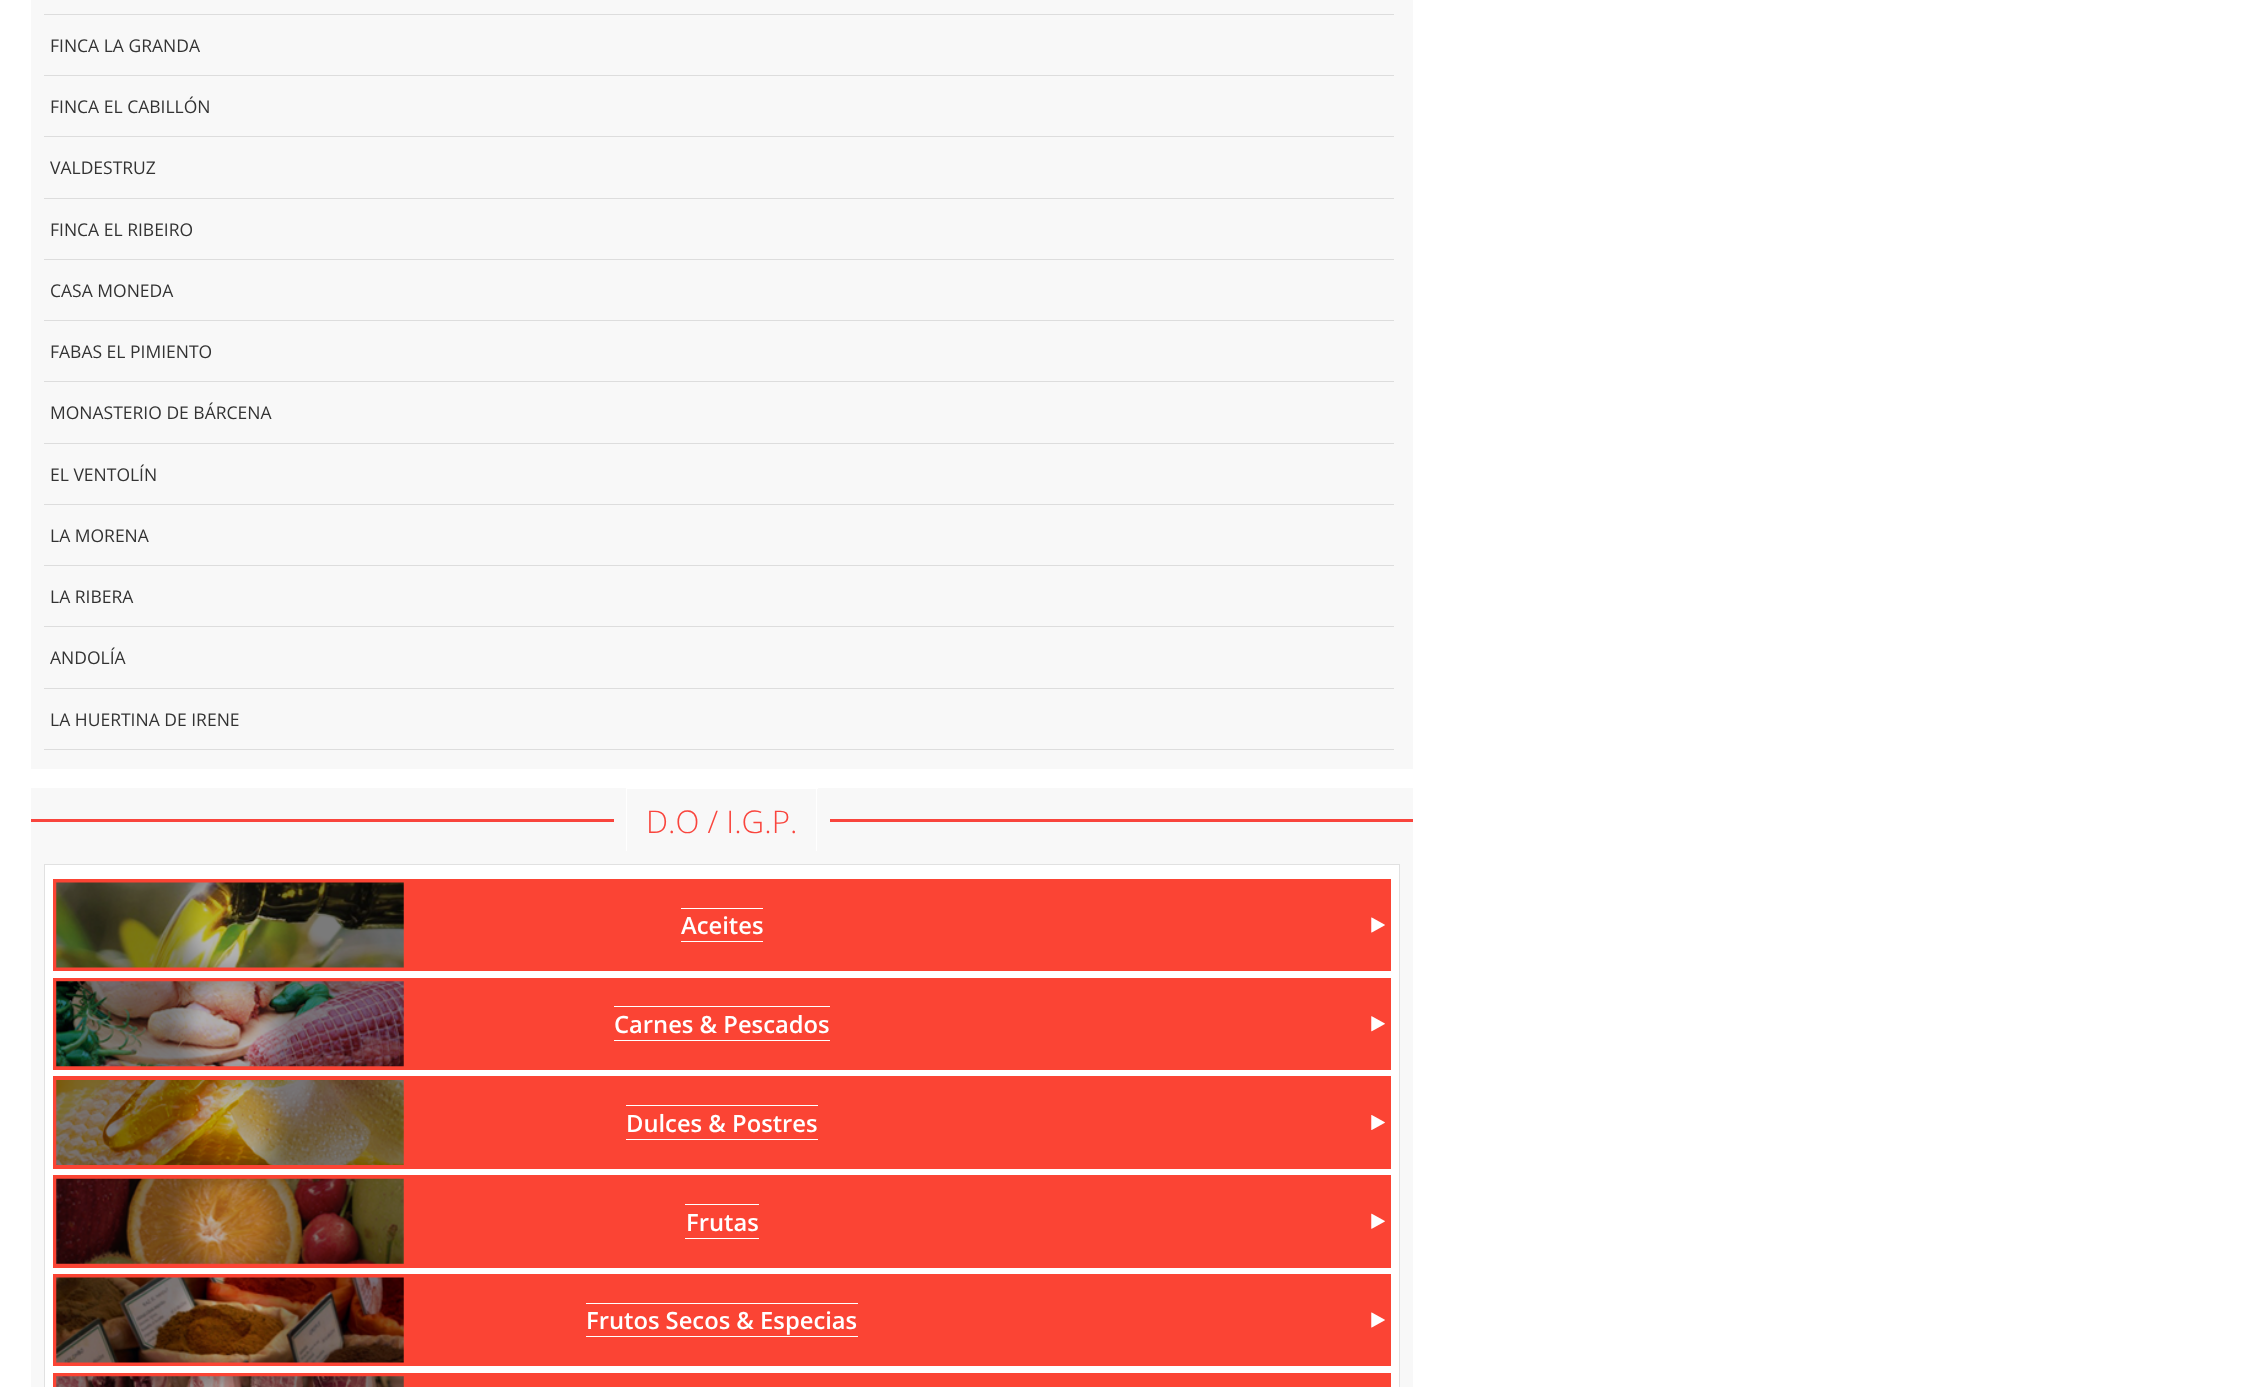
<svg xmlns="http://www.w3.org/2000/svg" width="2252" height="1387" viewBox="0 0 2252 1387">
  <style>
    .t1 { font: 17.5px Open Sans; fill: #333; }
    .t2 { font: 300 31.25px Open Sans; fill: #f9453d; }
    .t3 { font: 600 23.75px Open Sans; fill: #fff; }
  </style>
  <rect width="100%" height="100%" fill="#fff"/>
  <rect x="31" y="0" width="1382" height="769" fill="#f8f8f8"/>
  <rect x="44" y="14" width="1350" height="1" fill="#ddd"/>
  <rect x="44" y="75" width="1350" height="1" fill="#ddd"/>
  <text x="50" y="52" class="t1">FINCA LA GRANDA</text>
  <rect x="44" y="136" width="1350" height="1" fill="#ddd"/>
  <text x="50" y="113" class="t1">FINCA EL CABILLÓN</text>
  <rect x="44" y="198" width="1350" height="1" fill="#ddd"/>
  <text x="50" y="174" class="t1">VALDESTRUZ</text>
  <rect x="44" y="259" width="1350" height="1" fill="#ddd"/>
  <text x="50" y="236" class="t1">FINCA EL RIBEIRO</text>
  <rect x="44" y="320" width="1350" height="1" fill="#ddd"/>
  <text x="50" y="297" class="t1">CASA MONEDA</text>
  <rect x="44" y="381" width="1350" height="1" fill="#ddd"/>
  <text x="50" y="358" class="t1">FABAS EL PIMIENTO</text>
  <rect x="44" y="443" width="1350" height="1" fill="#ddd"/>
  <text x="50" y="419" class="t1">MONASTERIO DE BÁRCENA</text>
  <rect x="44" y="504" width="1350" height="1" fill="#ddd"/>
  <text x="50" y="481" class="t1">EL VENTOLÍN</text>
  <rect x="44" y="565" width="1350" height="1" fill="#ddd"/>
  <text x="50" y="542" class="t1">LA MORENA</text>
  <rect x="44" y="626" width="1350" height="1" fill="#ddd"/>
  <text x="50" y="603" class="t1">LA RIBERA</text>
  <rect x="44" y="688" width="1350" height="1" fill="#ddd"/>
  <text x="50" y="664" class="t1">ANDOLÍA</text>
  <rect x="44" y="749" width="1350" height="1" fill="#ddd"/>
  <text x="50" y="726" class="t1">LA HUERTINA DE IRENE</text>
  <rect x="31" y="788" width="1382" height="599" fill="#f8f8f8"/>
  <rect x="31" y="819" width="583" height="3" fill="#f9453d"/>
  <rect x="626" y="788" width="192" height="1" fill="#fff"/>
  <rect x="816" y="788" width="1" height="63" fill="#fff"/>
  <rect x="626" y="788" width="1" height="63" fill="#fff"/>
  <text x="646" y="833" class="t2">D.O / I.G.P.</text>
  <rect x="830" y="819" width="583" height="3" fill="#f9453d"/>
  <rect x="44.5" y="864.5" width="1355" height="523" fill="#fff" stroke="#e1e1e1"/>
  <rect x="53" y="879" width="1338" height="92" fill="#fb4434"/>
  <image x="56" y="882" width="348" height="86" href="images/1.png"/>
  <text x="681" y="934" class="t3">Aceites</text>
  <rect x="681" y="908" width="82" height="1" fill="#fff"/>
  <rect x="681" y="941" width="82" height="1" fill="#fff"/>
  <image x="1371" y="917" width="14" height="16" href="images/2.png"/>
  <rect x="53" y="978" width="1338" height="92" fill="#fb4434"/>
  <image x="56" y="981" width="348" height="86" href="images/3.png"/>
  <text x="614" y="1033" class="t3">Carnes &amp; Pescados</text>
  <rect x="614" y="1006" width="216" height="1" fill="#fff"/>
  <rect x="614" y="1040" width="216" height="1" fill="#fff"/>
  <image x="1371" y="1016" width="14" height="16" href="images/4.png"/>
  <rect x="53" y="1076" width="1338" height="93" fill="#fb4434"/>
  <image x="56" y="1080" width="348" height="85" href="images/5.png"/>
  <text x="626" y="1132" class="t3">Dulces &amp; Postres</text>
  <rect x="626" y="1105" width="192" height="1" fill="#fff"/>
  <rect x="626" y="1139" width="192" height="1" fill="#fff"/>
  <image x="1371" y="1115" width="14" height="15" href="images/6.png"/>
  <rect x="53" y="1175" width="1338" height="93" fill="#fb4434"/>
  <image x="56" y="1178" width="348" height="86" href="images/7.png"/>
  <text x="686" y="1231" class="t3">Frutas</text>
  <rect x="685" y="1204" width="74" height="1" fill="#fff"/>
  <rect x="685" y="1238" width="74" height="1" fill="#fff"/>
  <image x="1371" y="1213" width="14" height="16" href="images/8.png"/>
  <rect x="53" y="1274" width="1338" height="92" fill="#fb4434"/>
  <image x="56" y="1277" width="348" height="86" href="images/9.png"/>
  <text x="586" y="1329" class="t3">Frutos Secos &amp; Especias</text>
  <rect x="586" y="1303" width="272" height="1" fill="#fff"/>
  <rect x="586" y="1336" width="272" height="1" fill="#fff"/>
  <image x="1371" y="1312" width="14" height="16" href="images/2.png"/>
  <rect x="53" y="1373" width="1338" height="14" fill="#fb4434"/>
  <image x="56" y="1376" width="348" height="11" href="images/10.png"/>
</svg>
